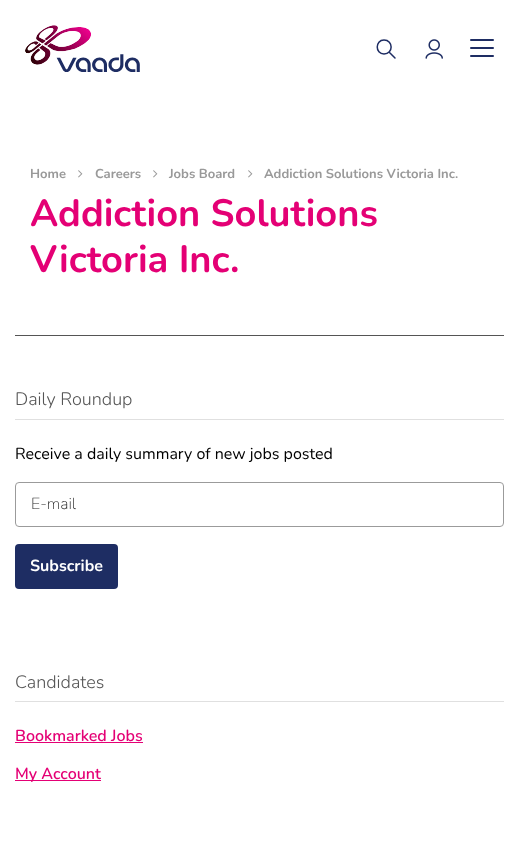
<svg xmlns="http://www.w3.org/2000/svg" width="519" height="846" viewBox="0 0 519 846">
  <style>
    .t1 { font: bold 13px Nunito; fill: #999; }
    .t2 { font: bold 38px Nunito; fill: #e40075; }
    .t3 { font: 300 18px Nunito; fill: #555; }
    .t4 { font: 16px Nunito; fill: #000; }
    .t5 { font: 200 16px Nunito; fill: #222; }
    .t6 { font: bold 16px Nunito; fill: #fff; }
    .t7 { font: 600 16px Nunito; fill: #e40075; }
  </style>
  <rect width="100%" height="100%" fill="#fff"/>
  <image x="25" y="25" width="115" height="47" href="images/1.png"/>
  <path d="M389 52L395 58M384 54C375 54 375 40 384 40C393.5 40 393.5 54 384 54Z" fill="none" stroke="#1e2d63" stroke-width="1.5" stroke-linecap="round" stroke-linejoin="round"/>
  <image x="425" y="39" width="18" height="20" href="images/2.png"/>
  <rect x="470" y="47" width="24" height="2" rx="1" fill="#1e2d63"/>
  <rect x="470" y="39" width="24" height="2" rx="1" fill="#1e2d63"/>
  <rect x="470" y="55" width="24" height="2" rx="1" fill="#1e2d63"/>
  <text x="30" y="178" class="t1">Home</text>
  <image x="78" y="170" width="5" height="8" href="images/3.png"/>
  <text x="95" y="178" class="t1">Careers</text>
  <image x="153" y="170" width="5" height="8" href="images/3.png"/>
  <text x="169" y="178" class="t1">Jobs Board</text>
  <image x="248" y="170" width="5" height="8" href="images/3.png"/>
  <text x="264" y="178" class="t1">Addiction Solutions Victoria Inc.</text>
  <text x="30" y="226" class="t2">Addiction Solutions</text>
  <text x="30" y="272" class="t2">Victoria Inc.</text>
  <rect x="15" y="335" width="489" height="1" fill="#555"/>
  <rect x="15" y="419" width="489" height="1" fill="#e0e0e0"/>
  <text x="15" y="405" class="t3">Daily Roundup</text>
  <text x="15" y="459" class="t4">Receive a daily summary of new jobs posted</text>
  <rect x="15.5" y="482.5" width="488" height="44" rx="3.5" fill="none" stroke="#9b9b9b"/>
  <text x="31" y="509" class="t5">E-mail</text>
  <rect x="15" y="544" width="103" height="45" rx="4" fill="#1e2d63"/>
  <text x="30" y="571" class="t6">Subscribe</text>
  <rect x="15" y="701" width="489" height="1" fill="#e0e0e0"/>
  <text x="15" y="688" class="t3">Candidates</text>
  <text x="15" y="741" class="t7">Bookmarked Jobs</text>
  <rect x="15" y="742" width="128" height="1" fill="#e40075"/>
  <rect x="15" y="780" width="86" height="1" fill="#e40075"/>
  <text x="15" y="779" class="t7">My Account</text>
</svg>
